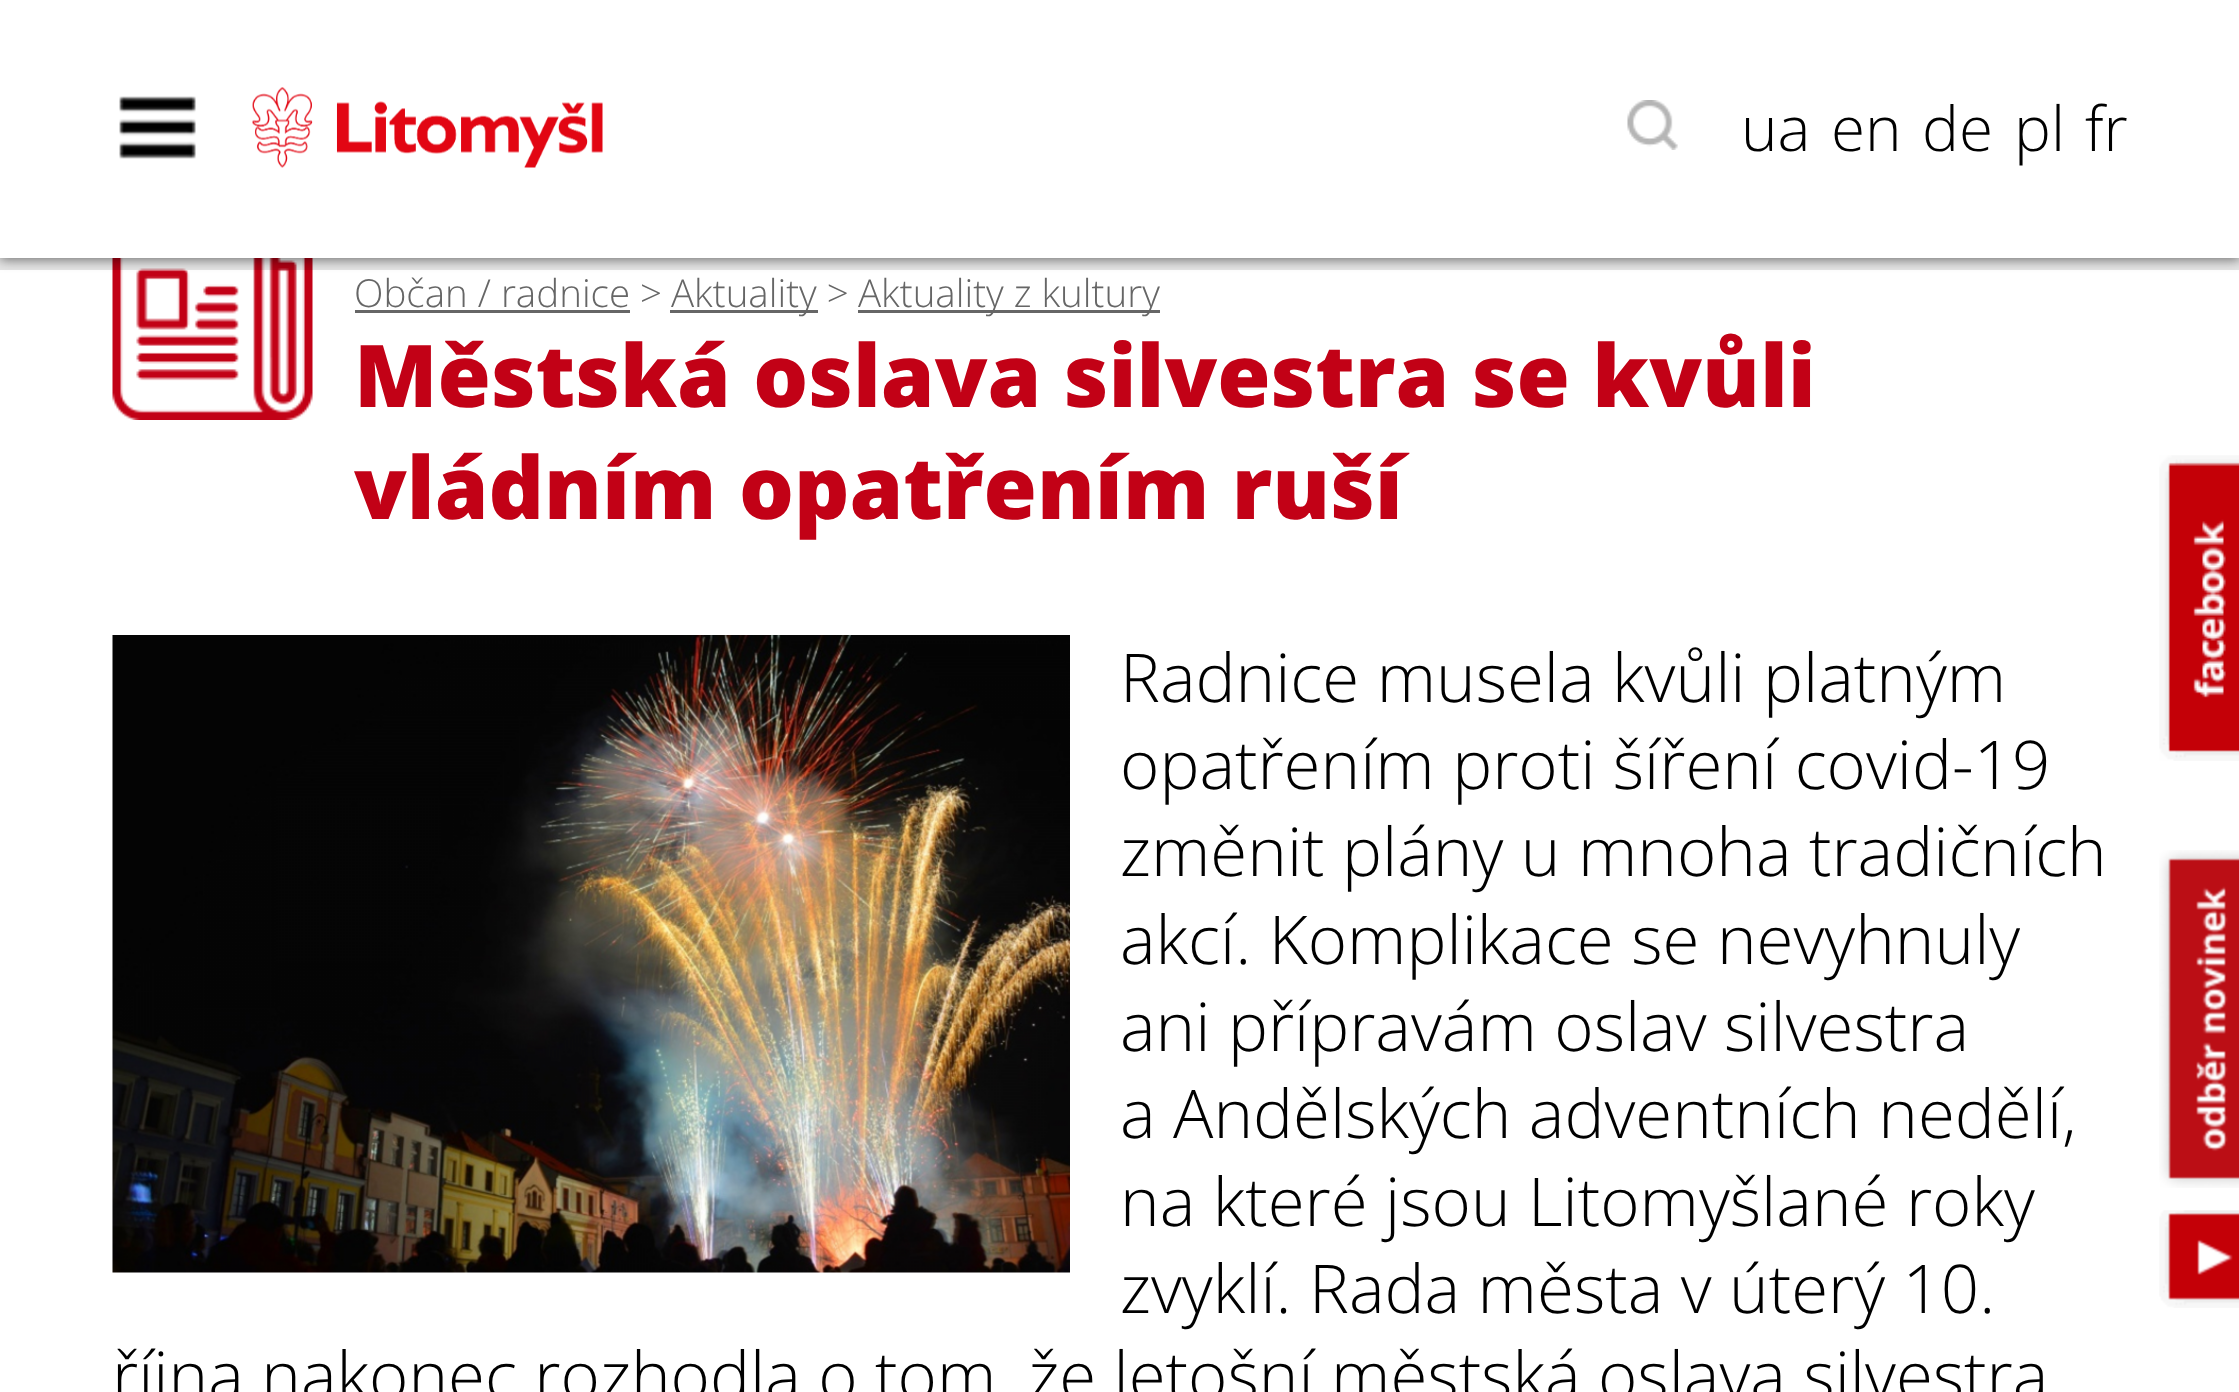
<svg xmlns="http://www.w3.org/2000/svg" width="2239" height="1392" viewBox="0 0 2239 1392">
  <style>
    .t1 { font: 300 62px Open Sans; fill: #000; }
    .t2 { font: 300 38.5px Open Sans; fill: #666; }
    .t3 { font: 800 86.4px Open Sans; fill: #c20116; }
    .t4 { font: 300 67.2px Open Sans; fill: #000; }
  </style>
  <rect width="100%" height="100%" fill="#fff"/>
  <image x="112" y="258" width="201" height="162" href="images/4.png"/>
  <rect x="0" y="3" width="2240" height="257" fill="#00000080" filter="blur(6px)"/>
  <rect x="-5.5" y="-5.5" width="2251" height="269" fill="none" stroke="#0000001a" stroke-width="13"/>
  <rect x="0" y="0" width="2239" height="258" fill="#fff"/>
  <image x="119" y="96" width="77" height="63" href="images/1.png"/>
  <image x="252" y="87" width="351" height="81" href="images/2.png"/>
  <image x="1627" y="100" width="51" height="50" href="images/3.png"/>
  <text x="1741" y="151" class="t1">ua</text>
  <text x="1831" y="151" class="t1">en</text>
  <text x="1922" y="151" class="t1">de</text>
  <text x="2014" y="151" class="t1">pl</text>
  <text x="2085" y="151" class="t1">fr</text>
  <text x="354" y="307" class="t2">Občan / radnice &gt;</text>
  <rect x="355" y="310" width="275" height="3" fill="#666"/>
  <rect x="670" y="310" width="148" height="3" fill="#666"/>
  <text x="671" y="307" class="t2">Aktuality &gt;</text>
  <rect x="858" y="310" width="302" height="3" fill="#666"/>
  <text x="858" y="307" class="t2">Aktuality z kultury</text>
  <text x="354" y="407" class="t3">Městská oslava silvestra se kvůli</text>
  <text x="354" y="519" class="t3">vládním opatřením ruší</text>
  <image x="112" y="635" width="958" height="638" href="images/5.png"/>
  <text x="1120" y="702" class="t4">Radnice musela kvůli platným</text>
  <text x="1120" y="789" class="t4">opatřením proti šíření covid-19</text>
  <text x="1120" y="876" class="t4">změnit plány u mnoha tradičních</text>
  <text x="1120" y="964" class="t4">akcí. Komplikace se nevyhnuly</text>
  <text x="1120" y="1051" class="t4">ani přípravám oslav silvestra</text>
  <text x="1120" y="1138" class="t4">a Andělských adventních nedělí,</text>
  <text x="1120" y="1226" class="t4">na které jsou Litomyšlané roky</text>
  <text x="1120" y="1313" class="t4">zvyklí. Rada města v úterý 10.</text>
  <text x="112" y="1400" class="t4">října nakonec rozhodla o tom, že letošní městská oslava silvestra</text>
  <image x="2159" y="455" width="80" height="306" href="images/6.png"/>
  <image x="2159" y="850" width="80" height="338" href="images/7.png"/>
  <image x="2159" y="1210" width="80" height="98" href="images/8.png"/>
</svg>
